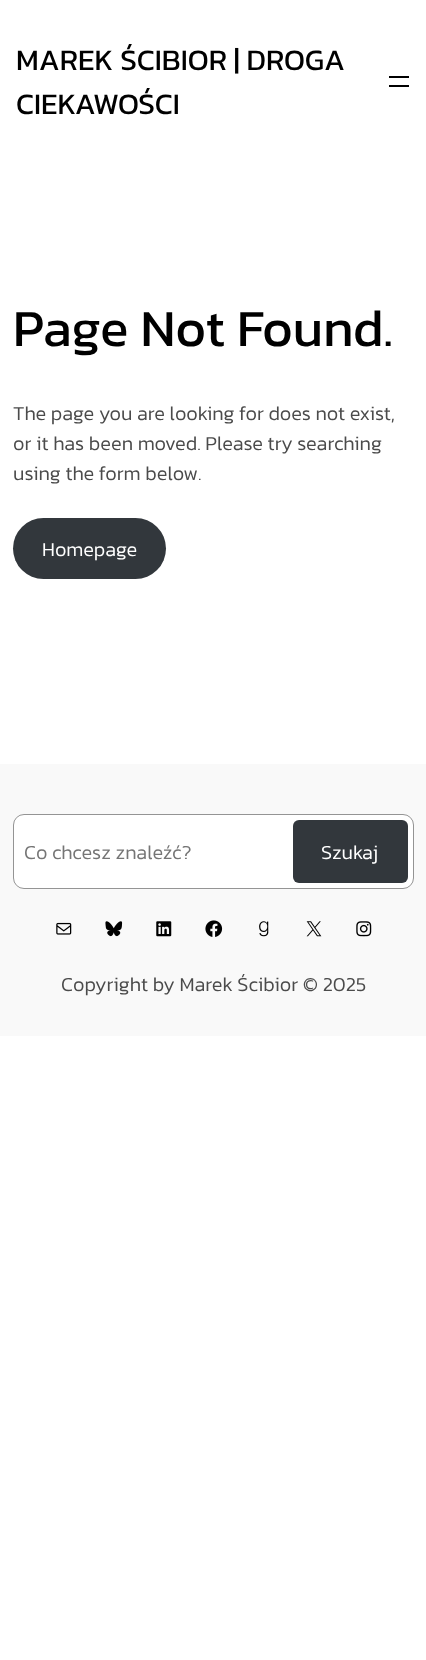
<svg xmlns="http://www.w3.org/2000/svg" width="426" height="1660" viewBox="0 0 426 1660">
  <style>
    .t1 { font: 30px Kanit; fill: #000; }
    .t2 { font: 52.5px Kanit; fill: #000; }
    .t3 { font: 300 20px Kanit; fill: #4b4b4b; }
    .t4 { font: 300 20px Kanit; fill: #fff; }
    .t5 { font: 300 20px Kanit; fill: #757575; }
  </style>
  <rect width="100%" height="100%" fill="#fff"/>
  <text x="16" y="70" class="t1">MAREK ŚCIBIOR | DROGA</text>
  <text x="16" y="114" class="t1">CIEKAWOŚCI</text>
  <rect x="389" y="76" width="20" height="2" fill="#000"/>
  <rect x="389" y="85" width="20" height="2" fill="#000"/>
  <text x="13" y="346" class="t2">Page Not Found.</text>
  <text x="13" y="420" class="t3">The page you are looking for does not exist,</text>
  <text x="13" y="450" class="t3">or it has been moved. Please try searching</text>
  <text x="13" y="480" class="t3">using the form below.</text>
  <rect x="13" y="518" width="153" height="61" rx="30.5" fill="#32373c"/>
  <text x="42" y="556" class="t4">Homepage</text>
  <rect x="0" y="764" width="426" height="272" fill="#f9f9f9"/>
  <rect x="13.5" y="814.5" width="400" height="74" rx="10.5" fill="#fff" stroke="#949494"/>
  <text x="24" y="859" class="t5">Co chcesz znaleźć?</text>
  <rect x="293" y="820" width="115" height="63" rx="6" fill="#32373c"/>
  <text x="321" y="859" class="t4">Szukaj</text>
  <image x="56" y="922" width="16" height="13" href="images/1.png"/>
  <image x="105" y="921" width="18" height="16" href="images/2.png"/>
  <image x="156" y="921" width="16" height="16" href="images/3.png"/>
  <image x="205" y="920" width="18" height="17" href="images/4.png"/>
  <image x="259" y="921" width="10" height="16" href="images/5.png"/>
  <image x="306" y="921" width="16" height="16" href="images/6.png"/>
  <image x="356" y="921" width="16" height="16" href="images/7.png"/>
  <text x="61" y="991" class="t3">Copyright by Marek Ścibior © 2025</text>
</svg>
